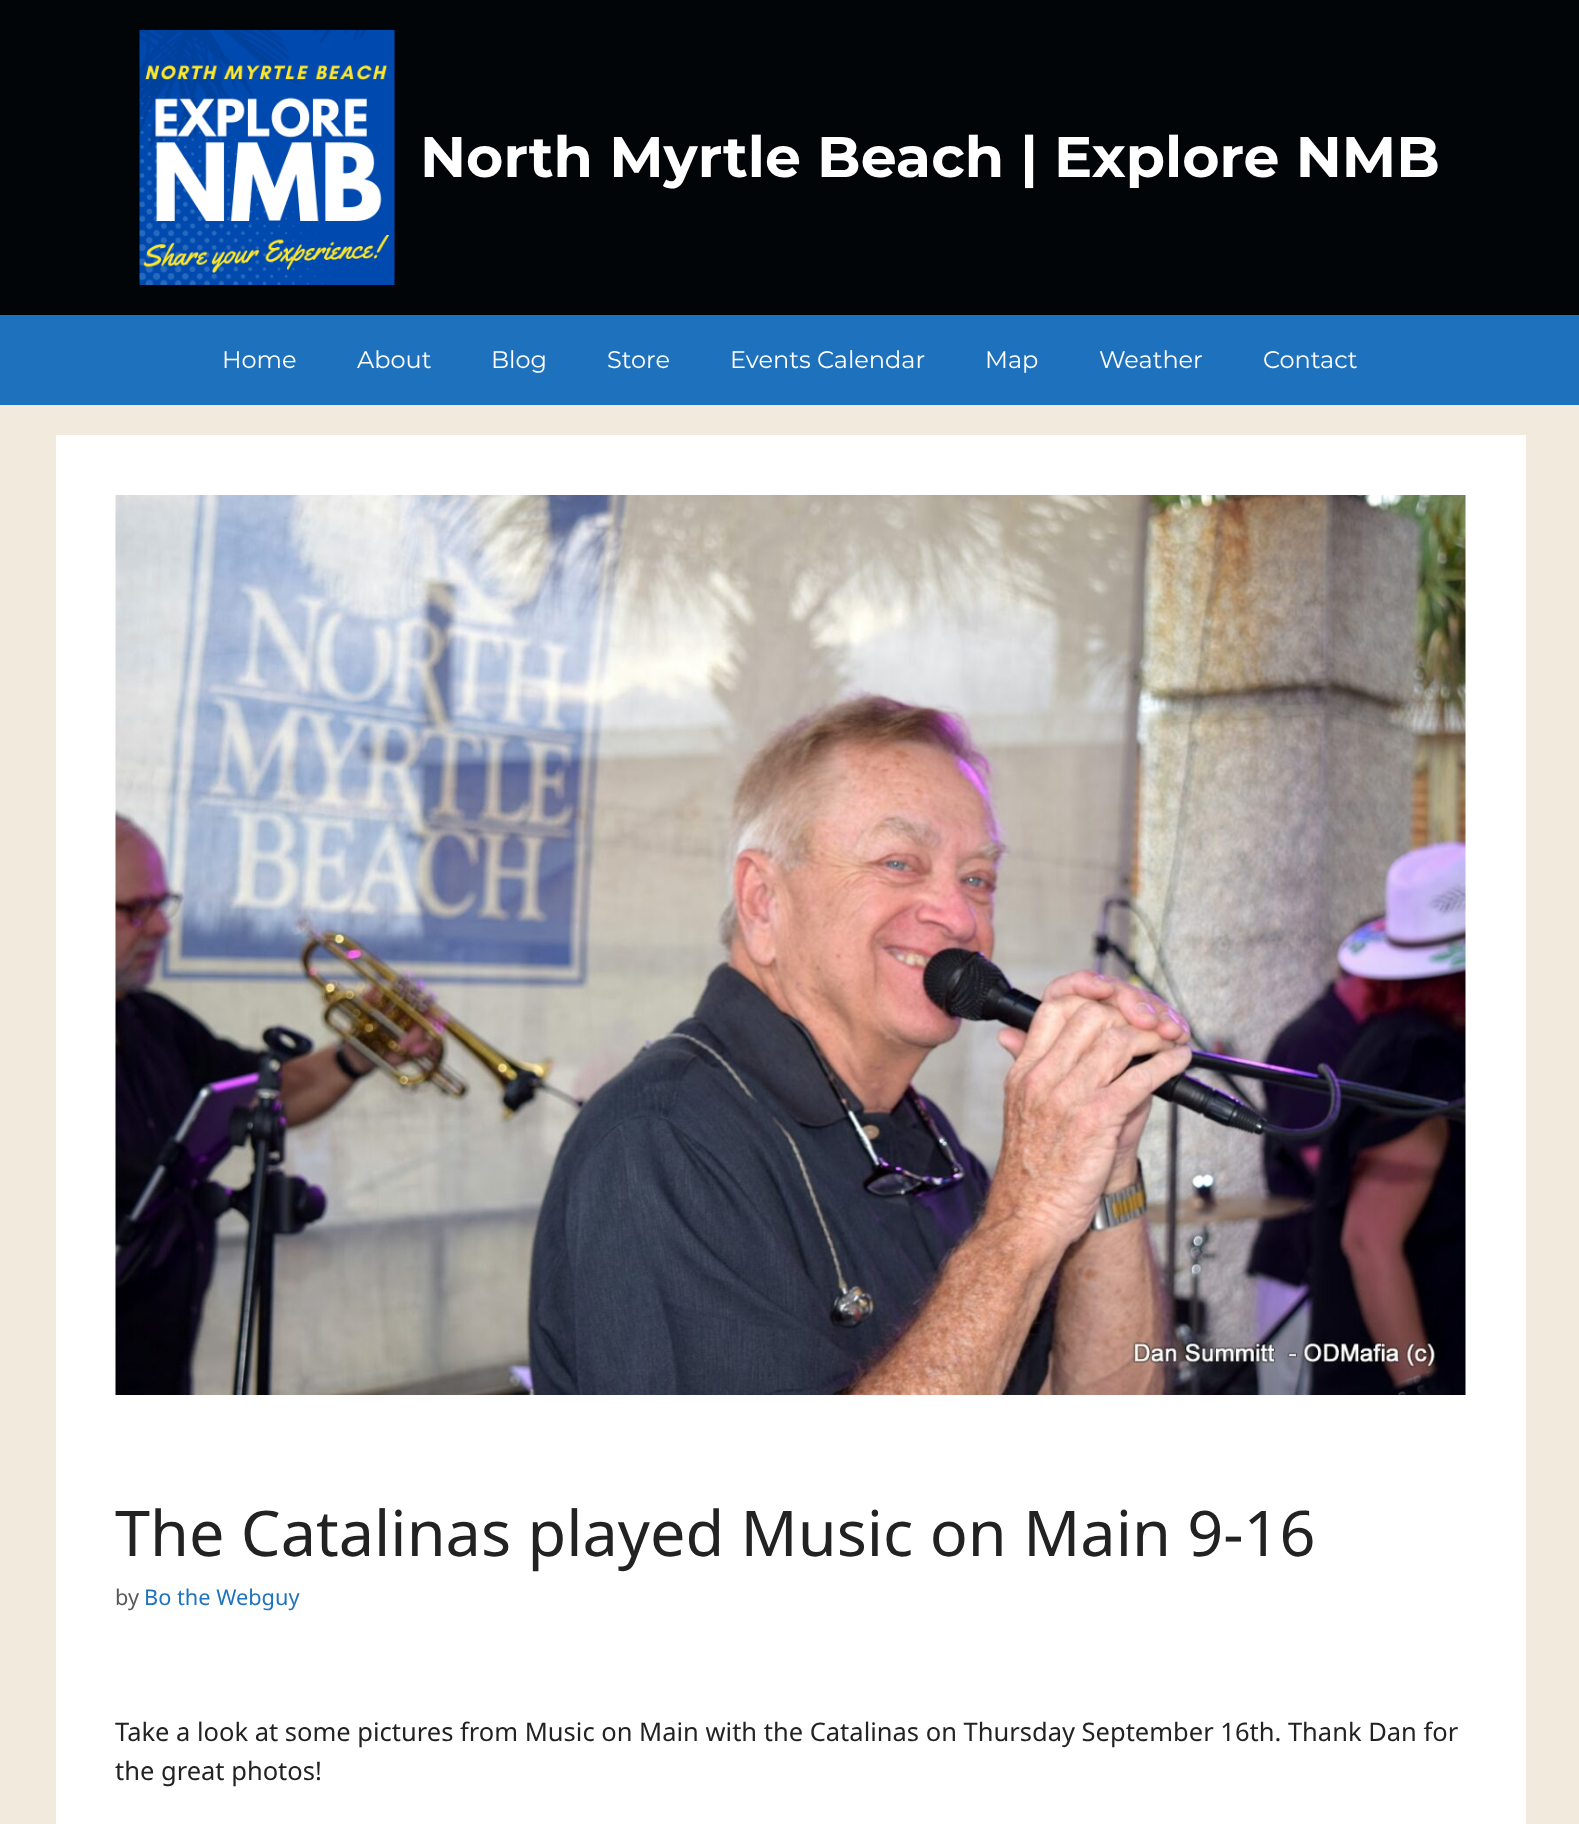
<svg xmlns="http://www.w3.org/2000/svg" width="1579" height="1824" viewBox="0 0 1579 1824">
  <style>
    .t1 { font: bold 57px Montserrat; fill: #fff; }
    .t2 { font: 24px Montserrat; fill: #fff; }
    .t3 { font: 63px Noto Sans; fill: #222; }
    .t4 { font: 21.75px Noto Sans; fill: #595959; }
    .t5 { font: 21.75px Noto Sans; fill: #1e73be; }
    .t6 { font: 25.5px Noto Sans; fill: #222; }
  </style>
  <rect width="100%" height="100%" fill="#f2eadc"/>
  <rect x="0" y="0" width="1579" height="315" fill="#010508"/>
  <image x="139" y="30" width="256" height="255" href="images/1.png"/>
  <text x="420" y="177" class="t1">North Myrtle Beach | Explore NMB</text>
  <rect x="0" y="315" width="1579" height="90" fill="#1e72bd"/>
  <text x="222" y="368" class="t2">Home</text>
  <text x="357" y="368" class="t2">About</text>
  <text x="491" y="368" class="t2">Blog</text>
  <text x="607" y="368" class="t2">Store</text>
  <text x="730" y="368" class="t2">Events Calendar</text>
  <text x="985" y="368" class="t2">Map</text>
  <text x="1099" y="368" class="t2">Weather</text>
  <text x="1263" y="368" class="t2">Contact</text>
  <rect x="56" y="435" width="1470" height="1389" fill="#fff"/>
  <image x="115" y="495" width="1351" height="900" href="images/2.png"/>
  <text x="115" y="1556" class="t3">The Catalinas played Music on Main 9-16</text>
  <text x="115" y="1605" class="t4">by</text>
  <text x="144" y="1605" class="t5">Bo the Webguy</text>
  <text x="115" y="1741" class="t6">Take a look at some pictures from Music on Main with the Catalinas on Thursday September 16th. Thank Dan for</text>
  <text x="115" y="1780" class="t6">the great photos!</text>
</svg>
